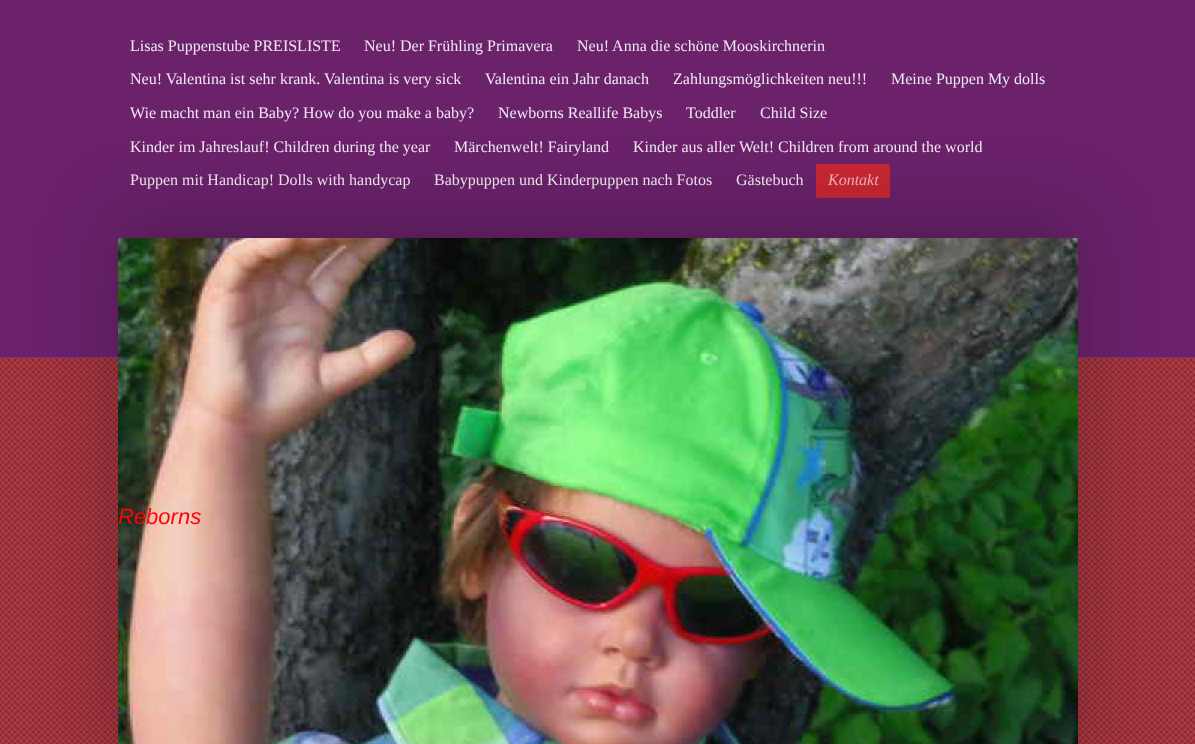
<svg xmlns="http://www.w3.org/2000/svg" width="1195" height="744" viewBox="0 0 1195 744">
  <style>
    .t1 { font: 16px Liberation Serif; fill: #f0e9f0; }
    .t2 { font: italic 16px Liberation Serif; fill: #f0b8bc; }
    .t3 { font: italic 22px Liberation Sans; fill: #fd040a; }
  </style>
  <rect width="100%" height="100%" fill="#ac3842"/>
  <image x="0" y="358" width="1195" height="386" href="images/1.png"/>
  <rect x="0" y="0" width="1195" height="357" fill="#6b226b"/>
  <rect x="0" y="357" width="1195" height="1" fill="#872b87"/>
  <text x="130" y="51" class="t1">Lisas Puppenstube PREISLISTE</text>
  <text x="364" y="51" class="t1">Neu! Der Frühling Primavera</text>
  <text x="577" y="51" class="t1">Neu! Anna die schöne Mooskirchnerin</text>
  <text x="130" y="84" class="t1">Neu! Valentina ist sehr krank. Valentina is very sick</text>
  <text x="485" y="84" class="t1">Valentina ein Jahr danach</text>
  <text x="673" y="84" class="t1">Zahlungsmöglichkeiten neu!!!</text>
  <text x="891" y="84" class="t1">Meine Puppen My dolls</text>
  <text x="130" y="118" class="t1">Wie macht man ein Baby? How do you make a baby?</text>
  <text x="498" y="118" class="t1">Newborns Reallife Babys</text>
  <text x="686" y="118" class="t1">Toddler</text>
  <text x="760" y="118" class="t1">Child Size</text>
  <text x="130" y="152" class="t1">Kinder im Jahreslauf! Children during the year</text>
  <text x="454" y="152" class="t1">Märchenwelt! Fairyland</text>
  <text x="633" y="152" class="t1">Kinder aus aller Welt! Children from around the world</text>
  <text x="130" y="185" class="t1">Puppen mit Handicap! Dolls with handycap</text>
  <text x="434" y="185" class="t1">Babypuppen und Kinderpuppen nach Fotos</text>
  <text x="736" y="185" class="t1">Gästebuch</text>
  <rect x="816" y="164" width="74" height="34" rx="2" fill="#ca2733"/>
  <text x="828" y="185" class="t2">Kontakt</text>
  <rect x="118" y="218" width="960" height="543" rx="2" fill="#0000003d" filter="blur(40px)"/>
  <image x="118" y="238" width="960" height="2" href="images/2.png"/>
  <image x="118" y="238" width="960" height="506" href="images/3.png"/>
  <text x="118" y="524" class="t3">Reborns</text>
</svg>
